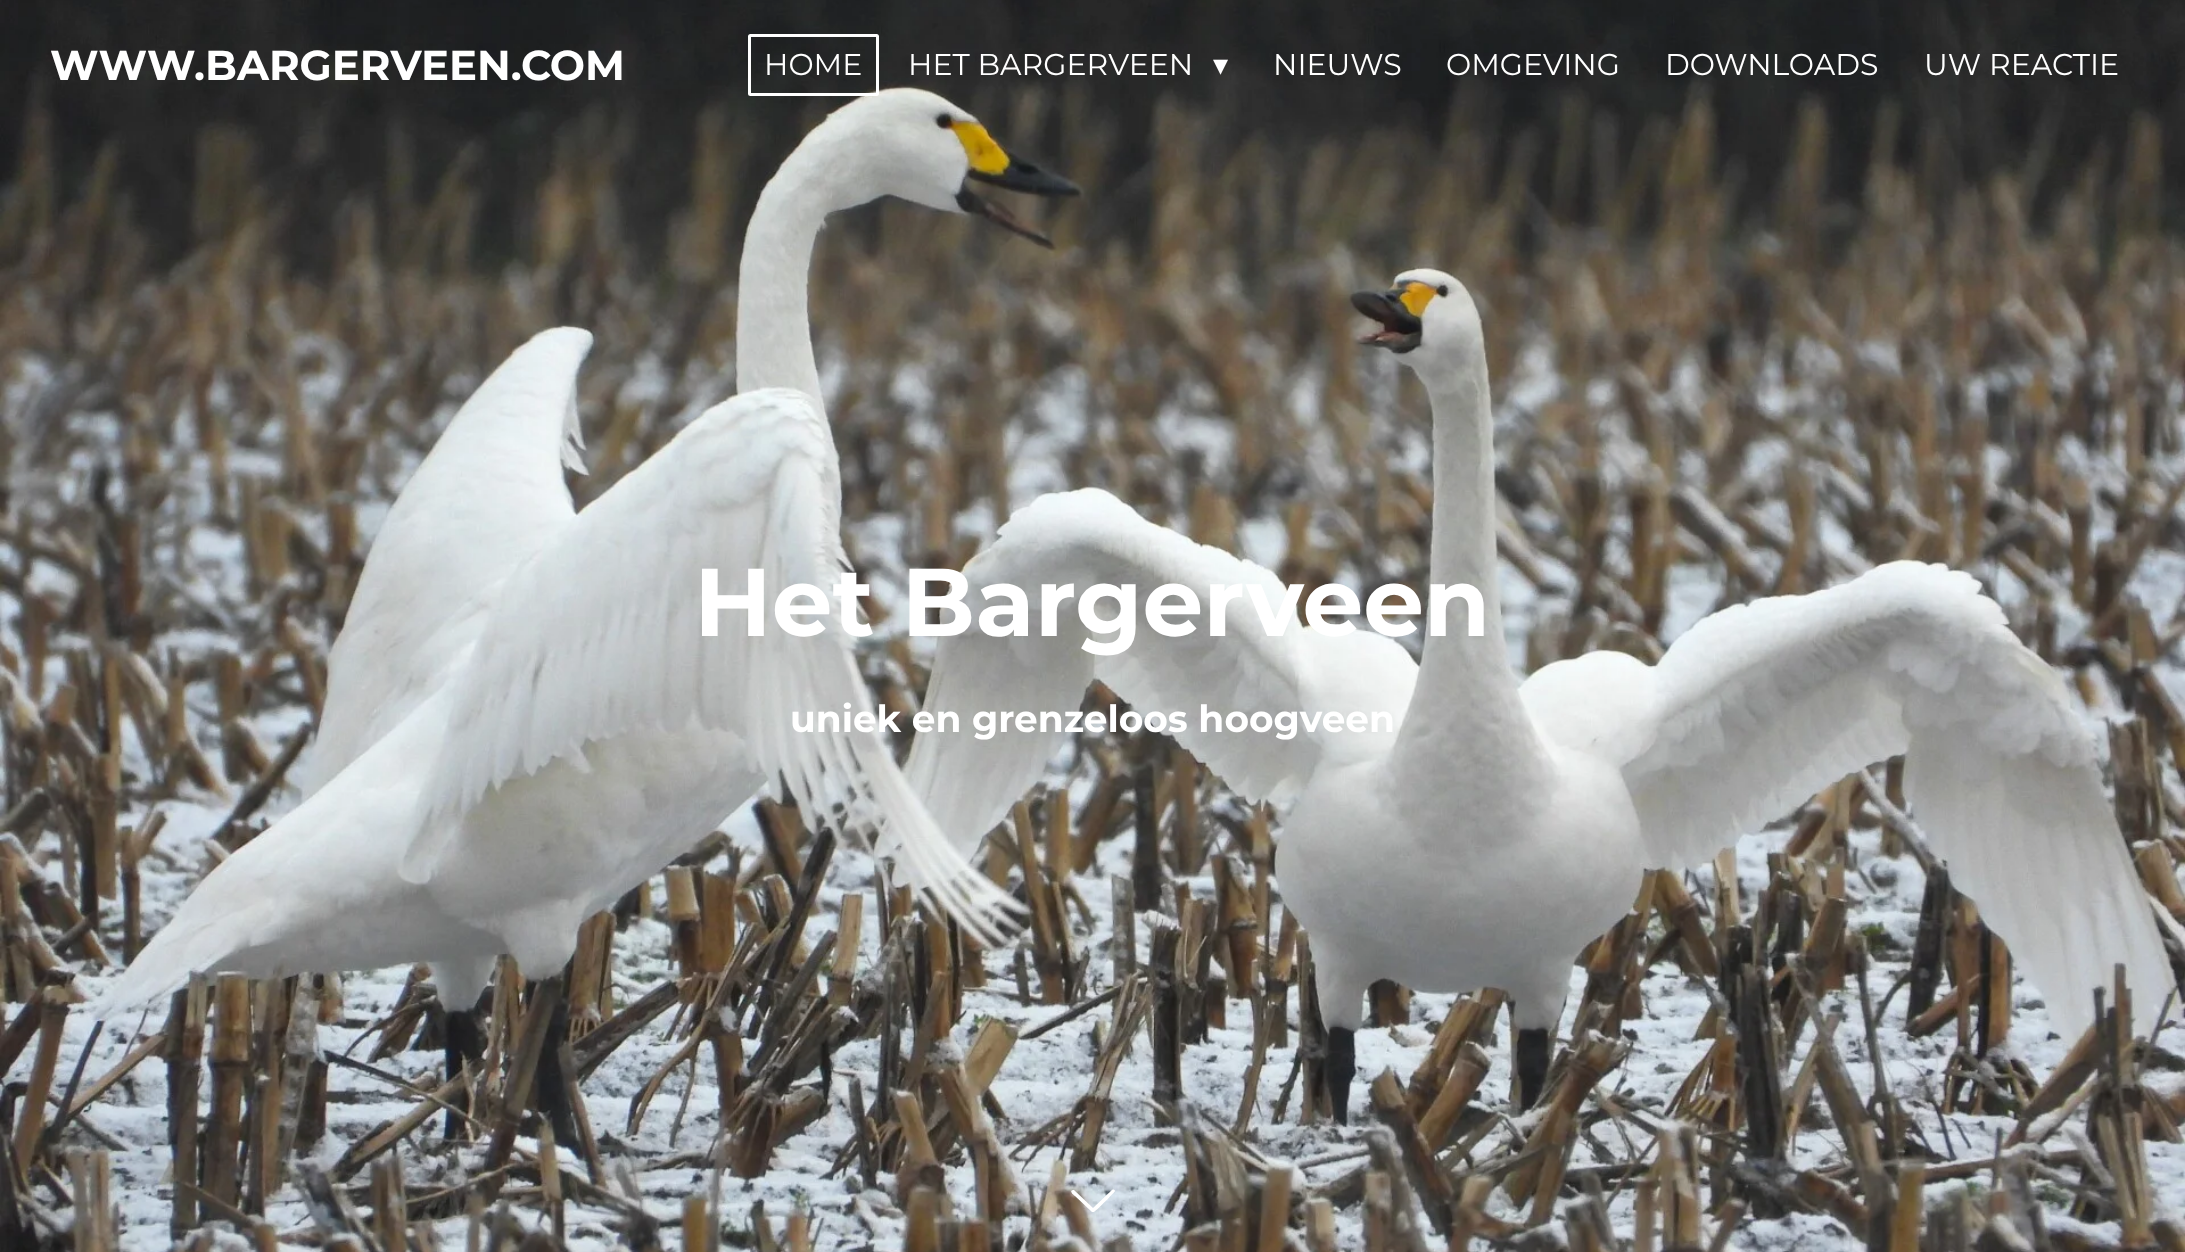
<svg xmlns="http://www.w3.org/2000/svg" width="2185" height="1252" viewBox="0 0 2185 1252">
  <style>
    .t1 { font: 100 41.75px Montserrat; fill: #fff; }
    .t2 { font: 100 30px 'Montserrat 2'; fill: #fff; }
    .t3 { font: 30px DejaVu Sans; fill: #fff; }
    .t4 { font: 100 96.25px Montserrat; fill: #fff; }
    .t5 { font: 100 37.5px Montserrat; fill: #fff; }
  </style>
  <rect width="100%" height="100%" fill="#fff"/>
  <image x="0" y="0" width="2185" height="1252" href="images/1.png"/>
  <text x="50" y="80" class="t1">WWW.BARGERVEEN.COM</text>
  <rect x="749.5" y="35.5" width="128" height="59" rx="1" fill="none" stroke="#fff" stroke-width="3"/>
  <text x="764" y="75" class="t2">HOME</text>
  <text x="908" y="75" class="t2">HET BARGERVEEN</text>
  <text x="1213" y="75" class="t3">▾</text>
  <text x="1273" y="75" class="t2">NIEUWS</text>
  <text x="1446" y="75" class="t2">OMGEVING</text>
  <text x="1665" y="75" class="t2">DOWNLOADS</text>
  <text x="1924" y="75" class="t2">UW REACTIE</text>
  <text x="694" y="636" class="t4">Het Bargerveen</text>
  <text x="790" y="732" class="t5">uniek en grenzeloos hoogveen</text>
  <path d="M1074 1190L1093 1208L1112 1190C1113 1189 1115 1190 1115 1191C1115 1192 1096 1211 1094 1212H1092L1075 1196C1075 1196 1068 1191 1073 1190Z" fill="#fff"/>
</svg>
